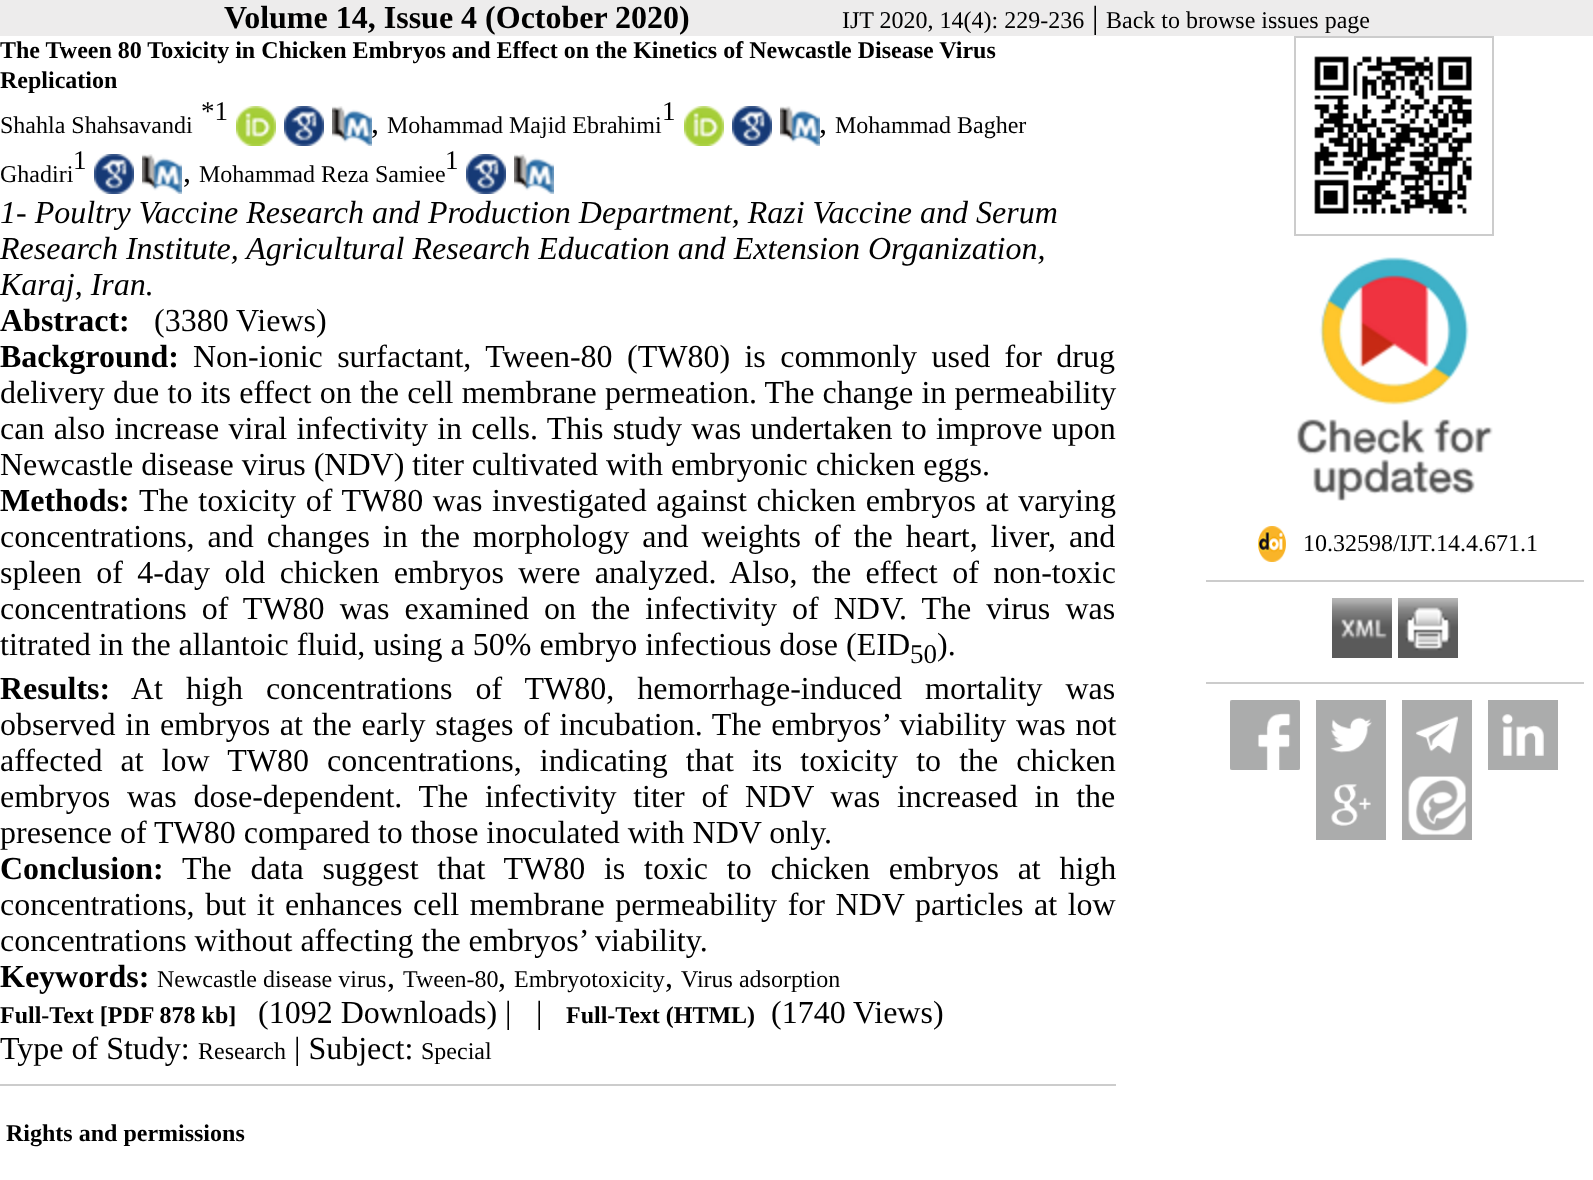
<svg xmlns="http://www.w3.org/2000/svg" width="1593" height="1180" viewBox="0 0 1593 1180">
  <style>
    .t1 { font: bold 32px Liberation Serif; fill: #000; }
    .t2 { font: 24px Liberation Serif; fill: #000; }
    .t3 { font: 32px Liberation Serif; fill: #000; }
    .t4 { font: bold 24px Liberation Serif; fill: #000; }
    .t5 { font: 27px Liberation Serif; fill: #000; }
    .t6 { font: italic 32px Liberation Serif; fill: #000; }
  </style>
  <rect width="100%" height="100%" fill="#fff"/>
  <rect x="0" y="0" width="1593" height="36" fill="#edecec"/>
  <text x="224" y="28" class="t1">Volume 14, Issue 4 (October 2020)</text>
  <text x="842" y="28" class="t2">IJT 2020, 14(4): 229-236</text>
  <text x="1092" y="28" class="t3">|</text>
  <text x="1106" y="28" class="t2">Back to browse issues page</text>
  <text x="0" y="58" class="t4">The Tween 80 Toxicity in Chicken Embryos and Effect on the Kinetics of Newcastle Disease Virus</text>
  <text x="0" y="88" class="t4">Replication</text>
  <text x="0" y="133" class="t2">Shahla Shahsavandi</text>
  <text x="201" y="120" class="t5">*1</text>
  <image x="236" y="106" width="40" height="40" href="images/1.png"/>
  <image x="284" y="106" width="40" height="40" href="images/2.png"/>
  <image x="332" y="106" width="40" height="40" href="images/3.png"/>
  <text x="371" y="133" class="t3">,</text>
  <text x="387" y="133" class="t2">Mohammad Majid Ebrahimi</text>
  <text x="662" y="120" class="t5">1</text>
  <image x="684" y="106" width="40" height="40" href="images/1.png"/>
  <image x="732" y="106" width="40" height="40" href="images/2.png"/>
  <image x="780" y="106" width="40" height="40" href="images/3.png"/>
  <text x="819" y="133" class="t3">,</text>
  <text x="835" y="133" class="t2">Mohammad Bagher</text>
  <text x="0" y="182" class="t2">Ghadiri</text>
  <text x="73" y="169" class="t5">1</text>
  <image x="94" y="154" width="40" height="40" href="images/2.png"/>
  <image x="142" y="154" width="40" height="40" href="images/3.png"/>
  <text x="183" y="182" class="t3">,</text>
  <text x="199" y="182" class="t2">Mohammad Reza Samiee</text>
  <text x="445" y="169" class="t5">1</text>
  <image x="466" y="154" width="40" height="40" href="images/2.png"/>
  <image x="514" y="154" width="40" height="40" href="images/3.png"/>
  <text x="0" y="223" class="t6">1- Poultry Vaccine Research and Production Department, Razi Vaccine and Serum</text>
  <text x="0" y="259" class="t6">Research Institute, Agricultural Research Education and Extension Organization,</text>
  <text x="0" y="295" class="t6">Karaj, Iran.</text>
  <text x="0" y="331" class="t1">Abstract:</text>
  <text x="154" y="331" class="t3">(3380 Views)</text>
  <text x="0" y="367" class="t1">Background:</text>
  <text x="193" y="367" word-spacing="6.4" class="t3">Non-ionic surfactant, Tween-80 (TW80) is commonly used for drug</text>
  <text x="0" y="403" word-spacing="0.25" class="t3">delivery due to its effect on the cell membrane permeation. The change in permeability</text>
  <text x="0" y="439" word-spacing="1.25" class="t3">can also increase viral infectivity in cells. This study was undertaken to improve upon</text>
  <text x="0" y="475" class="t3">Newcastle disease virus (NDV) titer cultivated with embryonic chicken eggs.</text>
  <text x="0" y="511" class="t1">Methods:</text>
  <text x="139" y="511" word-spacing="1.6" class="t3">The toxicity of TW80 was investigated against chicken embryos at varying</text>
  <text x="0" y="547" word-spacing="5" class="t3">concentrations, and changes in the morphology and weights of the heart, liver, and</text>
  <text x="0" y="583" word-spacing="6.4" class="t3">spleen of 4-day old chicken embryos were analyzed. Also, the effect of non-toxic</text>
  <text x="0" y="619" word-spacing="7.1" class="t3">concentrations of TW80 was examined on the infectivity of NDV. The virus was</text>
  <text x="0" y="655" class="t3">titrated in the allantoic fluid, using a 50% embryo infectious dose (EID</text>
  <text x="910" y="663" class="t5">50</text>
  <text x="937" y="655" class="t3">).</text>
  <text x="0" y="699" class="t1">Results:</text>
  <text x="131" y="699" word-spacing="15" class="t3">At high concentrations of TW80, hemorrhage-induced mortality was</text>
  <text x="0" y="735" word-spacing="1.75" class="t3">observed in embryos at the early stages of incubation. The embryos’ viability was not</text>
  <text x="0" y="771" word-spacing="10.1" class="t3">affected at low TW80 concentrations, indicating that its toxicity to the chicken</text>
  <text x="0" y="807" word-spacing="8.75" class="t3">embryos was dose-dependent. The infectivity titer of NDV was increased in the</text>
  <text x="0" y="843" class="t3">presence of TW80 compared to those inoculated with NDV only.</text>
  <text x="0" y="879" class="t1">Conclusion:</text>
  <text x="182" y="879" word-spacing="10.75" class="t3">The data suggest that TW80 is toxic to chicken embryos at high</text>
  <text x="0" y="915" word-spacing="2.6" class="t3">concentrations, but it enhances cell membrane permeability for NDV particles at low</text>
  <text x="0" y="951" class="t3">concentrations without affecting the embryos’ viability.</text>
  <text x="0" y="987" class="t1">Keywords:</text>
  <text x="157" y="987" class="t2">Newcastle disease virus</text>
  <text x="387" y="987" class="t3">,</text>
  <text x="403" y="987" class="t2">Tween-80</text>
  <text x="498" y="987" class="t3">,</text>
  <text x="514" y="987" class="t2">Embryotoxicity</text>
  <text x="665" y="987" class="t3">,</text>
  <text x="681" y="987" class="t2">Virus adsorption</text>
  <text x="0" y="1023" class="t4">Full-Text [PDF 878 kb]</text>
  <text x="258" y="1023" class="t3">(1092 Downloads) |</text>
  <text x="536" y="1023" class="t3">|</text>
  <text x="566" y="1023" class="t4">Full-Text (HTML)</text>
  <text x="771" y="1023" class="t3">(1740 Views)</text>
  <text x="0" y="1059" class="t3">Type of Study:</text>
  <text x="198" y="1059" class="t2">Research</text>
  <text x="294" y="1059" class="t3">| Subject:</text>
  <text x="421" y="1059" class="t2">Special</text>
  <rect x="0" y="1084" width="1116" height="2" fill="#ccc"/>
  <text x="6" y="1141" class="t4">Rights and permissions</text>
  <rect x="1295" y="37" width="198" height="198" fill="none" stroke="#ccc" stroke-width="2"/>
  <image x="1314" y="56" width="158" height="158" href="images/4.png"/>
  <image x="1296" y="257" width="197" height="244" href="images/5.png"/>
  <image x="1258" y="526" width="28" height="36" href="images/6.png"/>
  <text x="1303" y="551" class="t2">10.32598/IJT.14.4.671.1</text>
  <rect x="1206" y="580" width="378" height="2" fill="#ccc"/>
  <image x="1332" y="598" width="60" height="60" href="images/7.png"/>
  <image x="1398" y="598" width="60" height="60" href="images/8.png"/>
  <rect x="1206" y="682" width="378" height="2" fill="#ccc"/>
  <image x="1230" y="700" width="70" height="70" href="images/9.png"/>
  <image x="1316" y="700" width="70" height="70" href="images/10.png"/>
  <image x="1402" y="700" width="70" height="70" href="images/11.png"/>
  <image x="1488" y="700" width="70" height="70" href="images/12.png"/>
  <image x="1316" y="770" width="70" height="70" href="images/13.png"/>
  <image x="1402" y="770" width="70" height="70" href="images/14.png"/>
</svg>
